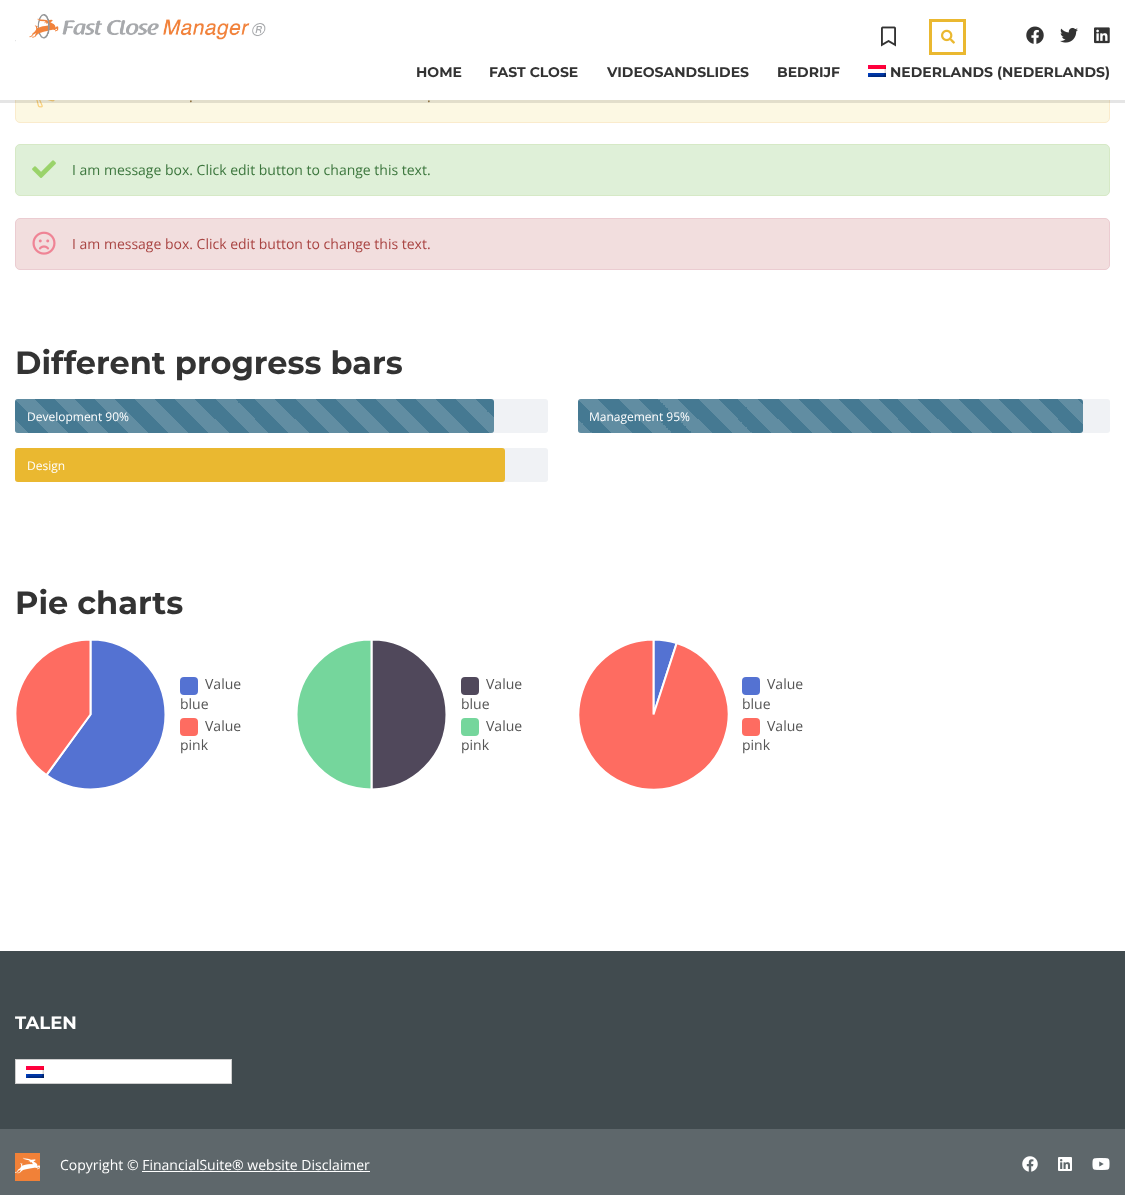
<svg xmlns="http://www.w3.org/2000/svg" width="1125" height="1195" viewBox="0 0 1125 1195">
  <style>
    .t1 { font: bold 14px Montserrat; fill: #333; }
    .t2 { font: 14px Open Sans; fill: #8a6d3b; }
    .t3 { font: 14px Open Sans; fill: #3c763d; }
    .t4 { font: 14px Open Sans; fill: #a94442; }
    .t5 { font: bold 32px Montserrat; fill: #333; }
    .t6 { font: 12px Open Sans; fill: #fff; }
    .t7 { font: 14px Open Sans; fill: #555; }
    .t8 { font: bold 18px Montserrat; fill: #fff; }
    .t9 { font: 14px Open Sans; fill: #fff; }
  </style>
  <defs>
    <linearGradient id="g1" gradientUnits="userSpaceOnUse" x1="15" y1="439" x2="55" y2="399"><stop offset="0.25" stop-color="#fff" stop-opacity="0.15"/><stop offset="0.25" stop-color="#fff" stop-opacity="0"/><stop offset="0.5" stop-color="#fff" stop-opacity="0"/><stop offset="0.5" stop-color="#fff" stop-opacity="0.15"/><stop offset="0.75" stop-color="#fff" stop-opacity="0.15"/><stop offset="0.75" stop-color="#fff" stop-opacity="0"/><stop offset="1" stop-color="#000" stop-opacity="0"/></linearGradient>
    <linearGradient id="g2" gradientUnits="userSpaceOnUse" x1="55" y1="439" x2="95" y2="399"><stop offset="0.25" stop-color="#618da2"/><stop offset="0.25" stop-color="#457992"/><stop offset="0.5" stop-color="#457992"/><stop offset="0.5" stop-color="#618da2"/><stop offset="0.75" stop-color="#618da2"/><stop offset="0.75" stop-color="#457992"/><stop offset="1" stop-color="#457992"/></linearGradient>
    <linearGradient id="g3" gradientUnits="userSpaceOnUse" x1="95" y1="439" x2="135" y2="399"><stop offset="0.25" stop-color="#618da2"/><stop offset="0.25" stop-color="#457992"/><stop offset="0.5" stop-color="#457992"/><stop offset="0.5" stop-color="#618da2"/><stop offset="0.75" stop-color="#618da2"/><stop offset="0.75" stop-color="#457992"/><stop offset="1" stop-color="#457992"/></linearGradient>
    <linearGradient id="g4" gradientUnits="userSpaceOnUse" x1="135" y1="439" x2="175" y2="399"><stop offset="0.25" stop-color="#618da2"/><stop offset="0.25" stop-color="#457992"/><stop offset="0.5" stop-color="#457992"/><stop offset="0.5" stop-color="#618da2"/><stop offset="0.75" stop-color="#618da2"/><stop offset="0.75" stop-color="#457992"/><stop offset="1" stop-color="#457992"/></linearGradient>
    <linearGradient id="g5" gradientUnits="userSpaceOnUse" x1="175" y1="439" x2="215" y2="399"><stop offset="0.25" stop-color="#618da2"/><stop offset="0.25" stop-color="#457992"/><stop offset="0.5" stop-color="#457992"/><stop offset="0.5" stop-color="#618da2"/><stop offset="0.75" stop-color="#618da2"/><stop offset="0.75" stop-color="#457992"/><stop offset="1" stop-color="#457992"/></linearGradient>
    <linearGradient id="g6" gradientUnits="userSpaceOnUse" x1="215" y1="439" x2="255" y2="399"><stop offset="0.25" stop-color="#618da2"/><stop offset="0.25" stop-color="#457992"/><stop offset="0.5" stop-color="#457992"/><stop offset="0.5" stop-color="#618da2"/><stop offset="0.75" stop-color="#618da2"/><stop offset="0.75" stop-color="#457992"/><stop offset="1" stop-color="#457992"/></linearGradient>
    <linearGradient id="g7" gradientUnits="userSpaceOnUse" x1="255" y1="439" x2="295" y2="399"><stop offset="0.25" stop-color="#618da2"/><stop offset="0.25" stop-color="#457992"/><stop offset="0.5" stop-color="#457992"/><stop offset="0.5" stop-color="#618da2"/><stop offset="0.75" stop-color="#618da2"/><stop offset="0.75" stop-color="#457992"/><stop offset="1" stop-color="#457992"/></linearGradient>
    <linearGradient id="g8" gradientUnits="userSpaceOnUse" x1="295" y1="439" x2="335" y2="399"><stop offset="0.25" stop-color="#618da2"/><stop offset="0.25" stop-color="#457992"/><stop offset="0.5" stop-color="#457992"/><stop offset="0.5" stop-color="#618da2"/><stop offset="0.75" stop-color="#618da2"/><stop offset="0.75" stop-color="#457992"/><stop offset="1" stop-color="#457992"/></linearGradient>
    <linearGradient id="g9" gradientUnits="userSpaceOnUse" x1="335" y1="439" x2="375" y2="399"><stop offset="0.25" stop-color="#618da2"/><stop offset="0.25" stop-color="#457992"/><stop offset="0.5" stop-color="#457992"/><stop offset="0.5" stop-color="#618da2"/><stop offset="0.75" stop-color="#618da2"/><stop offset="0.75" stop-color="#457992"/><stop offset="1" stop-color="#457992"/></linearGradient>
    <linearGradient id="g10" gradientUnits="userSpaceOnUse" x1="375" y1="439" x2="415" y2="399"><stop offset="0.25" stop-color="#618da2"/><stop offset="0.25" stop-color="#457992"/><stop offset="0.5" stop-color="#457992"/><stop offset="0.5" stop-color="#618da2"/><stop offset="0.75" stop-color="#618da2"/><stop offset="0.75" stop-color="#457992"/><stop offset="1" stop-color="#457992"/></linearGradient>
    <linearGradient id="g11" gradientUnits="userSpaceOnUse" x1="415" y1="439" x2="455" y2="399"><stop offset="0.25" stop-color="#618da2"/><stop offset="0.25" stop-color="#457992"/><stop offset="0.5" stop-color="#457992"/><stop offset="0.5" stop-color="#618da2"/><stop offset="0.75" stop-color="#618da2"/><stop offset="0.75" stop-color="#457992"/><stop offset="1" stop-color="#457992"/></linearGradient>
    <linearGradient id="g12" gradientUnits="userSpaceOnUse" x1="455" y1="439" x2="495" y2="399"><stop offset="0.25" stop-color="#fff" stop-opacity="0.15"/><stop offset="0.25" stop-color="#fff" stop-opacity="0"/><stop offset="0.5" stop-color="#fff" stop-opacity="0"/><stop offset="0.5" stop-color="#fff" stop-opacity="0.15"/><stop offset="0.75" stop-color="#fff" stop-opacity="0.15"/><stop offset="0.75" stop-color="#fff" stop-opacity="0"/><stop offset="1" stop-color="#000" stop-opacity="0"/></linearGradient>
    <linearGradient id="g13" gradientUnits="userSpaceOnUse" x1="578" y1="439" x2="618" y2="399"><stop offset="0.25" stop-color="#fff" stop-opacity="0.15"/><stop offset="0.25" stop-color="#fff" stop-opacity="0"/><stop offset="0.5" stop-color="#fff" stop-opacity="0"/><stop offset="0.5" stop-color="#fff" stop-opacity="0.15"/><stop offset="0.75" stop-color="#fff" stop-opacity="0.15"/><stop offset="0.75" stop-color="#fff" stop-opacity="0"/><stop offset="1" stop-color="#000" stop-opacity="0"/></linearGradient>
    <linearGradient id="g14" gradientUnits="userSpaceOnUse" x1="618" y1="439" x2="658" y2="399"><stop offset="0.25" stop-color="#618da2"/><stop offset="0.25" stop-color="#457992"/><stop offset="0.5" stop-color="#457992"/><stop offset="0.5" stop-color="#618da2"/><stop offset="0.75" stop-color="#618da2"/><stop offset="0.75" stop-color="#457992"/><stop offset="1" stop-color="#457992"/></linearGradient>
    <linearGradient id="g15" gradientUnits="userSpaceOnUse" x1="658" y1="439" x2="698" y2="399"><stop offset="0.25" stop-color="#618da2"/><stop offset="0.25" stop-color="#457992"/><stop offset="0.5" stop-color="#457992"/><stop offset="0.5" stop-color="#618da2"/><stop offset="0.75" stop-color="#618da2"/><stop offset="0.75" stop-color="#457992"/><stop offset="1" stop-color="#457992"/></linearGradient>
    <linearGradient id="g16" gradientUnits="userSpaceOnUse" x1="698" y1="439" x2="738" y2="399"><stop offset="0.25" stop-color="#618da2"/><stop offset="0.25" stop-color="#457992"/><stop offset="0.5" stop-color="#457992"/><stop offset="0.5" stop-color="#618da2"/><stop offset="0.75" stop-color="#618da2"/><stop offset="0.75" stop-color="#457992"/><stop offset="1" stop-color="#457992"/></linearGradient>
    <linearGradient id="g17" gradientUnits="userSpaceOnUse" x1="738" y1="439" x2="778" y2="399"><stop offset="0.25" stop-color="#618da2"/><stop offset="0.25" stop-color="#457992"/><stop offset="0.5" stop-color="#457992"/><stop offset="0.5" stop-color="#618da2"/><stop offset="0.75" stop-color="#618da2"/><stop offset="0.75" stop-color="#457992"/><stop offset="1" stop-color="#457992"/></linearGradient>
    <linearGradient id="g18" gradientUnits="userSpaceOnUse" x1="778" y1="439" x2="818" y2="399"><stop offset="0.25" stop-color="#618da2"/><stop offset="0.25" stop-color="#457992"/><stop offset="0.5" stop-color="#457992"/><stop offset="0.5" stop-color="#618da2"/><stop offset="0.75" stop-color="#618da2"/><stop offset="0.75" stop-color="#457992"/><stop offset="1" stop-color="#457992"/></linearGradient>
    <linearGradient id="g19" gradientUnits="userSpaceOnUse" x1="818" y1="439" x2="858" y2="399"><stop offset="0.25" stop-color="#618da2"/><stop offset="0.25" stop-color="#457992"/><stop offset="0.5" stop-color="#457992"/><stop offset="0.5" stop-color="#618da2"/><stop offset="0.75" stop-color="#618da2"/><stop offset="0.75" stop-color="#457992"/><stop offset="1" stop-color="#457992"/></linearGradient>
    <linearGradient id="g20" gradientUnits="userSpaceOnUse" x1="858" y1="439" x2="898" y2="399"><stop offset="0.25" stop-color="#618da2"/><stop offset="0.25" stop-color="#457992"/><stop offset="0.5" stop-color="#457992"/><stop offset="0.5" stop-color="#618da2"/><stop offset="0.75" stop-color="#618da2"/><stop offset="0.75" stop-color="#457992"/><stop offset="1" stop-color="#457992"/></linearGradient>
    <linearGradient id="g21" gradientUnits="userSpaceOnUse" x1="898" y1="439" x2="938" y2="399"><stop offset="0.25" stop-color="#618da2"/><stop offset="0.25" stop-color="#457992"/><stop offset="0.5" stop-color="#457992"/><stop offset="0.5" stop-color="#618da2"/><stop offset="0.75" stop-color="#618da2"/><stop offset="0.75" stop-color="#457992"/><stop offset="1" stop-color="#457992"/></linearGradient>
    <linearGradient id="g22" gradientUnits="userSpaceOnUse" x1="938" y1="439" x2="978" y2="399"><stop offset="0.25" stop-color="#618da2"/><stop offset="0.25" stop-color="#457992"/><stop offset="0.5" stop-color="#457992"/><stop offset="0.5" stop-color="#618da2"/><stop offset="0.75" stop-color="#618da2"/><stop offset="0.75" stop-color="#457992"/><stop offset="1" stop-color="#457992"/></linearGradient>
    <linearGradient id="g23" gradientUnits="userSpaceOnUse" x1="978" y1="439" x2="1018" y2="399"><stop offset="0.25" stop-color="#618da2"/><stop offset="0.25" stop-color="#457992"/><stop offset="0.5" stop-color="#457992"/><stop offset="0.5" stop-color="#618da2"/><stop offset="0.75" stop-color="#618da2"/><stop offset="0.75" stop-color="#457992"/><stop offset="1" stop-color="#457992"/></linearGradient>
    <linearGradient id="g24" gradientUnits="userSpaceOnUse" x1="1018" y1="439" x2="1058" y2="399"><stop offset="0.25" stop-color="#618da2"/><stop offset="0.25" stop-color="#457992"/><stop offset="0.5" stop-color="#457992"/><stop offset="0.5" stop-color="#618da2"/><stop offset="0.75" stop-color="#618da2"/><stop offset="0.75" stop-color="#457992"/><stop offset="1" stop-color="#457992"/></linearGradient>
    <linearGradient id="g25" gradientUnits="userSpaceOnUse" x1="1058" y1="439" x2="1098" y2="399"><stop offset="0.25" stop-color="#fff" stop-opacity="0.15"/><stop offset="0.25" stop-color="#fff" stop-opacity="0"/><stop offset="0.5" stop-color="#fff" stop-opacity="0"/><stop offset="0.5" stop-color="#fff" stop-opacity="0.15"/><stop offset="0.75" stop-color="#fff" stop-opacity="0.15"/><stop offset="0.75" stop-color="#fff" stop-opacity="0"/><stop offset="1" stop-color="#000" stop-opacity="0"/></linearGradient>
  </defs>
  <rect width="100%" height="100%" fill="#fff"/>
  <rect x="15.5" y="71.5" width="1094" height="51" rx="4.5" fill="#fcf8e3" stroke="#faebcc"/>
  <rect x="15" y="71" width="1095" height="29" fill="#fff"/>
  <image x="15" y="14" width="251" height="28" href="images/1.png"/>
  <image x="881" y="26" width="15" height="21" href="images/2.png"/>
  <rect x="930.5" y="20.5" width="34" height="33" fill="none" stroke="#eab830" stroke-width="3"/>
  <image x="941" y="29" width="14" height="15" href="images/3.png"/>
  <image x="1026" y="26" width="18" height="18" href="images/4.png"/>
  <image x="1060" y="27" width="18" height="16" href="images/5.png"/>
  <image x="1094" y="27" width="16" height="17" href="images/6.png"/>
  <text x="416" y="77" class="t1">HOME</text>
  <text x="489" y="77" class="t1">FAST CLOSE</text>
  <text x="607" y="77" class="t1">VIDEOSANDSLIDES</text>
  <text x="777" y="77" class="t1">BEDRIJF</text>
  <image x="868" y="65" width="18" height="12" href="images/7.png"/>
  <text x="890" y="77" class="t1">NEDERLANDS (NEDERLANDS)</text>
  <image x="36" y="100" width="19" height="8" href="images/8.png"/>
  <rect x="0" y="100" width="1125" height="3" fill="#0000001a"/>
  <text x="189" y="102" class="t2">.</text>
  <text x="427" y="102" class="t2">.</text>
  <rect x="15.5" y="144.5" width="1094" height="51" rx="4.5" fill="#dff0d8" stroke="#d6e9c6"/>
  <image x="32" y="160" width="24" height="18" href="images/9.png"/>
  <text x="72" y="175" class="t3">I am message box. Click edit button to change this text.</text>
  <rect x="15.5" y="218.5" width="1094" height="51" rx="4.5" fill="#f2dede" stroke="#ebccd1"/>
  <image x="32" y="231" width="24" height="24" href="images/10.png"/>
  <text x="72" y="249" class="t4">I am message box. Click edit button to change this text.</text>
  <text x="15" y="374" class="t5">Different progress bars</text>
  <rect x="15" y="399" width="533" height="34" rx="3" fill="#f0f2f5"/>
  <rect x="15" y="399" width="479" height="34" rx="3" fill="#457992"/>
  <path d="M18 399H55V433H18C16.5 433 15 431.5 15 430V402C15 400.5 16.5 399 18 399Z" fill="url(#g1)"/>
  <rect x="55" y="399" width="40" height="34" fill="url(#g2)"/>
  <rect x="95" y="399" width="40" height="34" fill="url(#g3)"/>
  <rect x="135" y="399" width="40" height="34" fill="url(#g4)"/>
  <rect x="175" y="399" width="40" height="34" fill="url(#g5)"/>
  <rect x="215" y="399" width="40" height="34" fill="url(#g6)"/>
  <rect x="255" y="399" width="40" height="34" fill="url(#g7)"/>
  <rect x="295" y="399" width="40" height="34" fill="url(#g8)"/>
  <rect x="335" y="399" width="40" height="34" fill="url(#g9)"/>
  <rect x="375" y="399" width="40" height="34" fill="url(#g10)"/>
  <rect x="415" y="399" width="40" height="34" fill="url(#g11)"/>
  <path d="M455 399H491C492.5 399 494 400.5 494 402V430C494 431.5 492.5 433 491 433H455Z" fill="url(#g12)"/>
  <text x="27" y="421" class="t6">Development 90%</text>
  <rect x="15" y="448" width="533" height="34" rx="3" fill="#f0f2f5"/>
  <rect x="15" y="448" width="490" height="34" rx="3" fill="#eab830"/>
  <text x="27" y="470" class="t6">Design</text>
  <rect x="578" y="399" width="532" height="34" rx="3" fill="#f0f2f5"/>
  <rect x="578" y="399" width="505" height="34" rx="3" fill="#457992"/>
  <path d="M581 399H618V433H581C579.5 433 578 431.5 578 430V402C578 400.5 579.5 399 581 399Z" fill="url(#g13)"/>
  <rect x="618" y="399" width="40" height="34" fill="url(#g14)"/>
  <rect x="658" y="399" width="40" height="34" fill="url(#g15)"/>
  <rect x="698" y="399" width="40" height="34" fill="url(#g16)"/>
  <rect x="738" y="399" width="40" height="34" fill="url(#g17)"/>
  <rect x="778" y="399" width="40" height="34" fill="url(#g18)"/>
  <rect x="818" y="399" width="40" height="34" fill="url(#g19)"/>
  <rect x="858" y="399" width="40" height="34" fill="url(#g20)"/>
  <rect x="898" y="399" width="40" height="34" fill="url(#g21)"/>
  <rect x="938" y="399" width="40" height="34" fill="url(#g22)"/>
  <rect x="978" y="399" width="40" height="34" fill="url(#g23)"/>
  <rect x="1018" y="399" width="40" height="34" fill="url(#g24)"/>
  <rect x="1058" y="399" width="25" height="34" fill="url(#g25)"/>
  <text x="589" y="421" class="t6">Management 95%</text>
  <text x="15" y="614" class="t5">Pie charts</text>
  <image x="16" y="640" width="149" height="149" href="images/11.png"/>
  <rect x="180" y="677" width="18" height="18" rx="4" fill="#5472d2"/>
  <text x="205" y="689" class="t7">Value</text>
  <text x="180" y="709" class="t7">blue</text>
  <rect x="180" y="718" width="18" height="18" rx="4" fill="#fe6c61"/>
  <text x="205" y="731" class="t7">Value</text>
  <text x="180" y="750" class="t7">pink</text>
  <image x="297" y="640" width="149" height="149" href="images/12.png"/>
  <rect x="461" y="677" width="18" height="18" rx="4" fill="#50485b"/>
  <text x="486" y="689" class="t7">Value</text>
  <text x="461" y="709" class="t7">blue</text>
  <rect x="461" y="718" width="18" height="18" rx="4" fill="#75d69c"/>
  <text x="486" y="731" class="t7">Value</text>
  <text x="461" y="750" class="t7">pink</text>
  <image x="579" y="640" width="149" height="149" href="images/13.png"/>
  <rect x="742" y="677" width="18" height="18" rx="4" fill="#5472d2"/>
  <text x="767" y="689" class="t7">Value</text>
  <text x="742" y="709" class="t7">blue</text>
  <rect x="742" y="718" width="18" height="18" rx="4" fill="#fe6c61"/>
  <text x="767" y="731" class="t7">Value</text>
  <text x="742" y="750" class="t7">pink</text>
  <rect x="0" y="951" width="1125" height="178" fill="#414b4f"/>
  <text x="15" y="1029" class="t8">TALEN</text>
  <rect x="15.5" y="1059.5" width="216" height="24" fill="#fff" stroke="#cdcdcd"/>
  <image x="26" y="1066" width="18" height="12" href="images/7.png"/>
  <rect x="0" y="1129" width="1125" height="66" fill="#5e676b"/>
  <image x="15" y="1153" width="25" height="28" href="images/14.png"/>
  <text x="60" y="1170" class="t9">Copyright © FinancialSuite® website Disclaimer</text>
  <rect x="142" y="1171" width="228" height="1" fill="#fff"/>
  <image x="1022" y="1156" width="16" height="16" href="images/15.png"/>
  <image x="1058" y="1157" width="14" height="14" href="images/16.png"/>
  <image x="1092" y="1158" width="18" height="12" href="images/17.png"/>
</svg>
